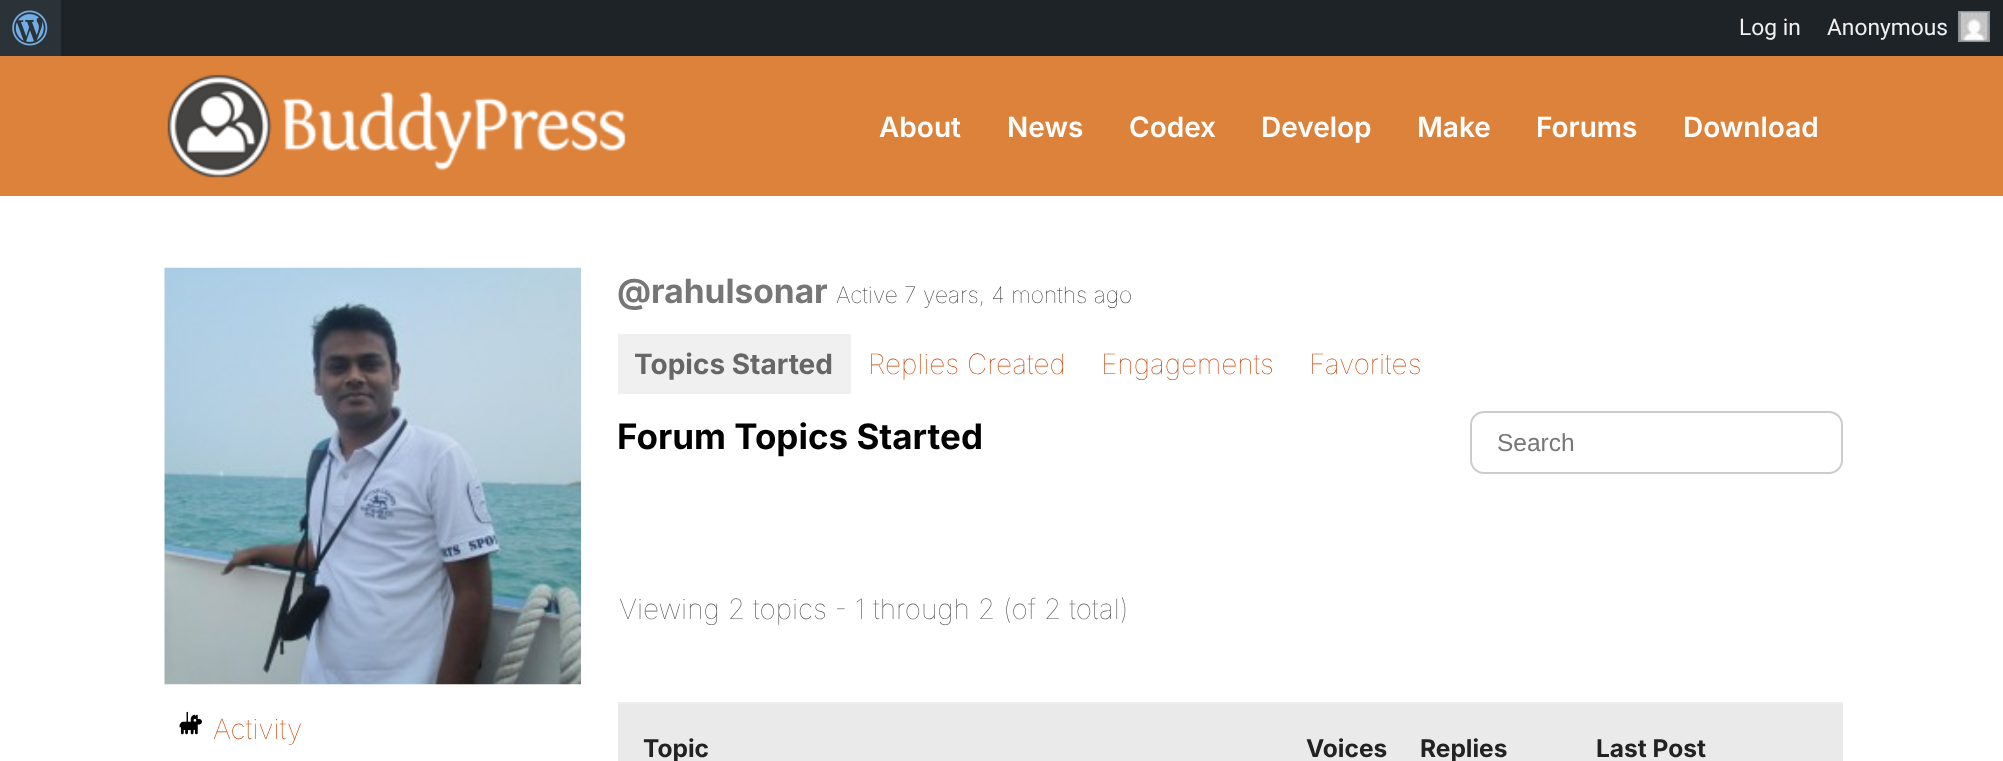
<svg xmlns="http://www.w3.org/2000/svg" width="2003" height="761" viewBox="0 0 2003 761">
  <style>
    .t1 { font: 22.75px Roboto; fill: #f0f0f1; }
    .t2 { font: 600 28px Inter; fill: #fff; }
    .t3 { font: 100 28px Inter; fill: #c74200; }
    .t4 { font: bold 33.5px Inter; fill: #767676; }
    .t5 { font: 100 22.75px Inter; fill: #222; }
    .t6 { font: bold 28px Inter; fill: #666; }
    .t7 { font: bold 35px Inter; fill: #000; }
    .t8 { font: 24.5px Liberation Sans; fill: #767676; }
    .t9 { font: 100 28px Inter; fill: #555; }
    .t10 { font: bold 24.5px Inter; fill: #222; }
  </style>
  <rect width="100%" height="100%" fill="#fff"/>
  <rect x="61" y="0" width="1942" height="56" fill="#1d2327"/>
  <rect x="0" y="0" width="61" height="56" fill="#2c3338"/>
  <image x="12" y="10" width="36" height="36" href="images/1.png"/>
  <text x="1739" y="35" class="t1">Log in</text>
  <rect x="1959" y="12" width="30" height="29" fill="none" stroke="#8c8f94" stroke-width="2"/>
  <text x="1827" y="35" class="t1">Anonymous</text>
  <image x="1959" y="12" width="30" height="29" href="images/2.png"/>
  <rect x="0" y="56" width="2003" height="140" fill="#dd823b"/>
  <image x="167" y="74" width="459" height="104" href="images/3.png"/>
  <text x="879" y="137" class="t2">About</text>
  <text x="1007" y="137" class="t2">News</text>
  <text x="1129" y="137" class="t2">Codex</text>
  <text x="1261" y="137" class="t2">Develop</text>
  <text x="1417" y="137" class="t2">Make</text>
  <text x="1536" y="137" class="t2">Forums</text>
  <text x="1683" y="137" class="t2">Download</text>
  <image x="164" y="267" width="417" height="418" href="images/4.png"/>
  <image x="179" y="711" width="23" height="24" href="images/5.png"/>
  <text x="213" y="739" class="t3">Activity</text>
  <text x="617" y="303" class="t4">@rahulsonar</text>
  <text x="836" y="303" class="t5">Active 7 years, 4 months ago</text>
  <rect x="618" y="334" width="233" height="60" fill="#f0f0f0"/>
  <text x="634" y="374" class="t6">Topics Started</text>
  <text x="868" y="374" class="t3">Replies Created</text>
  <text x="1101" y="374" class="t3">Engagements</text>
  <text x="1309" y="374" class="t3">Favorites</text>
  <text x="617" y="449" class="t7">Forum Topics Started</text>
  <rect x="1471" y="412" width="371" height="61" rx="13" fill="none" stroke="#ccc" stroke-width="2"/>
  <text x="1497" y="451" class="t8">Search</text>
  <text x="619" y="619" class="t9">Viewing 2 topics - 1 through 2 (of 2 total)</text>
  <rect x="618" y="704" width="1225" height="57" fill="#eaeaea"/>
  <rect x="618" y="702" width="1225" height="2" fill="#eee"/>
  <text x="643" y="757" class="t10">Topic</text>
  <text x="1306" y="757" class="t10">Voices</text>
  <text x="1420" y="757" class="t10">Replies</text>
  <text x="1596" y="757" class="t10">Last Post</text>
</svg>
